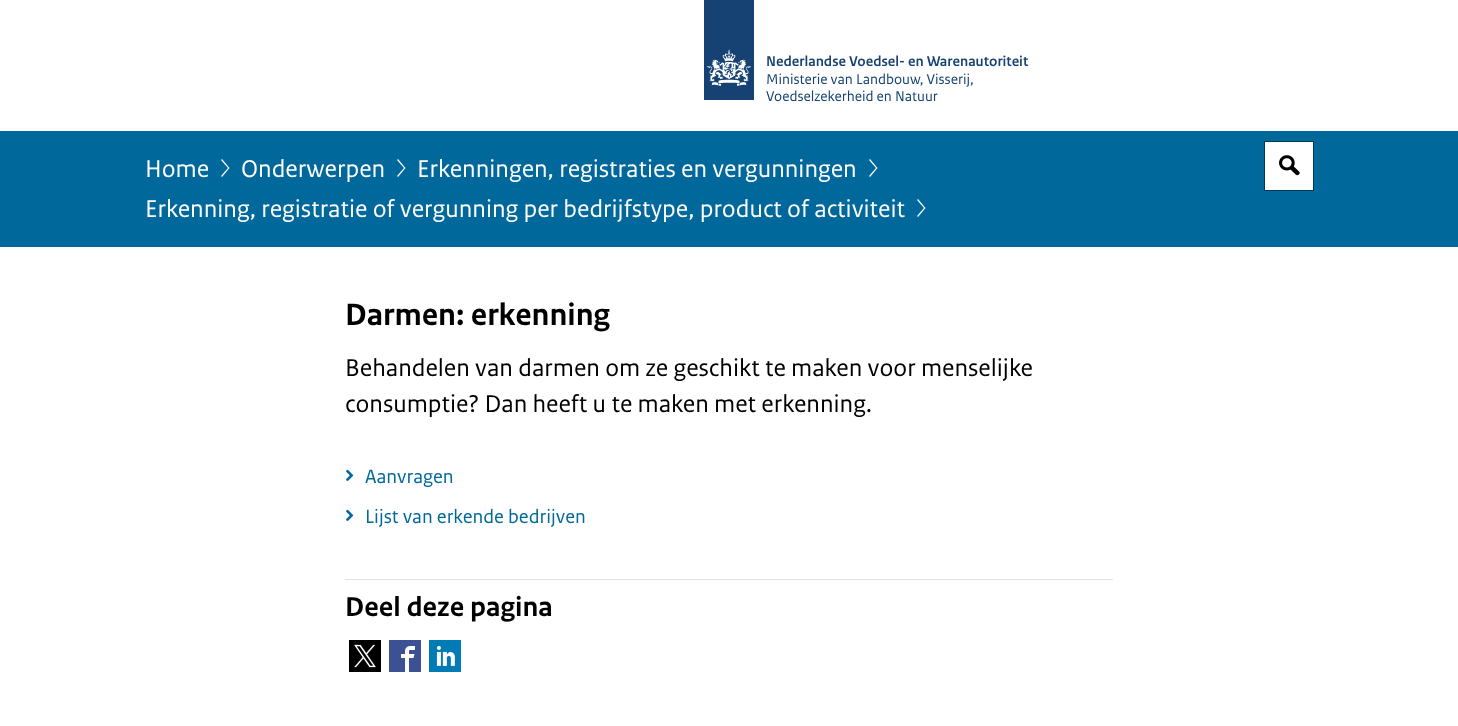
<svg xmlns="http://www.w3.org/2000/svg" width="1458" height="726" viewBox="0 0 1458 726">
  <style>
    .t1 { font: 600 15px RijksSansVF; fill: #154273; }
    .t2 { font: 15px RijksSansVF; fill: #154273; }
    .t3 { font: 25.6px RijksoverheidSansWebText; fill: #fff; }
    .t4 { font: bold 32.5px RijksoverheidSansWebText; fill: #000; }
    .t5 { font: 25.6px RijksoverheidSansWebText; fill: #000; }
    .t6 { font: 20.25px RijksoverheidSansWebText; fill: #01689b; }
    .t7 { font: bold 28.75px RijksoverheidSansWebText; fill: #000; }
  </style>
  <rect width="100%" height="100%" fill="#fff"/>
  <image x="704" y="0" width="50" height="100" href="images/1.png"/>
  <text x="766" y="66" class="t1">Nederlandse Voedsel- en Warenautoriteit</text>
  <text x="766" y="84" class="t2">Ministerie van Landbouw, Visserij,</text>
  <text x="766" y="101" class="t2">Voedselzekerheid en Natuur</text>
  <rect x="0" y="131" width="1458" height="116" fill="#01689b"/>
  <text x="145" y="177" class="t3">Home</text>
  <path d="M222 177L221 176L228 168L221 160L222 159L229.5 168Z" fill="#fff"/>
  <text x="241" y="177" class="t3">Onderwerpen</text>
  <path d="M398 177L397 176L404 168L397 160L398 159L405.5 168Z" fill="#fff"/>
  <text x="417" y="177" class="t3">Erkenningen, registraties en vergunningen</text>
  <path d="M870 177L869 176L876 168L869 160L870 159L877.5 168Z" fill="#fff"/>
  <text x="145" y="217" class="t3">Erkenning, registratie of vergunning per bedrijfstype, product of activiteit</text>
  <path d="M918 217L917 216L924 208L917 200L918 199L925.5 208Z" fill="#fff"/>
  <rect x="1264.5" y="141.5" width="49" height="49" fill="#fff" stroke="#013a57"/>
  <image x="1279" y="155" width="21" height="21" href="images/2.png"/>
  <text x="345" y="325" class="t4">Darmen: erkenning</text>
  <text x="345" y="376" class="t5">Behandelen van darmen om ze geschikt te maken voor menselijke</text>
  <text x="345" y="412" class="t5">consumptie? Dan heeft u te maken met erkenning.</text>
  <image x="346" y="469" width="8" height="12" href="images/3.png"/>
  <text x="365" y="483" class="t6">Aanvragen</text>
  <image x="346" y="509" width="8" height="12" href="images/3.png"/>
  <text x="365" y="523" class="t6">Lijst van erkende bedrijven</text>
  <rect x="345" y="579" width="768" height="1" fill="#e1e1e1"/>
  <text x="345" y="616" class="t7">Deel deze pagina</text>
  <image x="349" y="640" width="32" height="32" href="images/4.png"/>
  <image x="389" y="640" width="32" height="32" href="images/5.png"/>
  <image x="429" y="640" width="32" height="32" href="images/6.png"/>
</svg>
